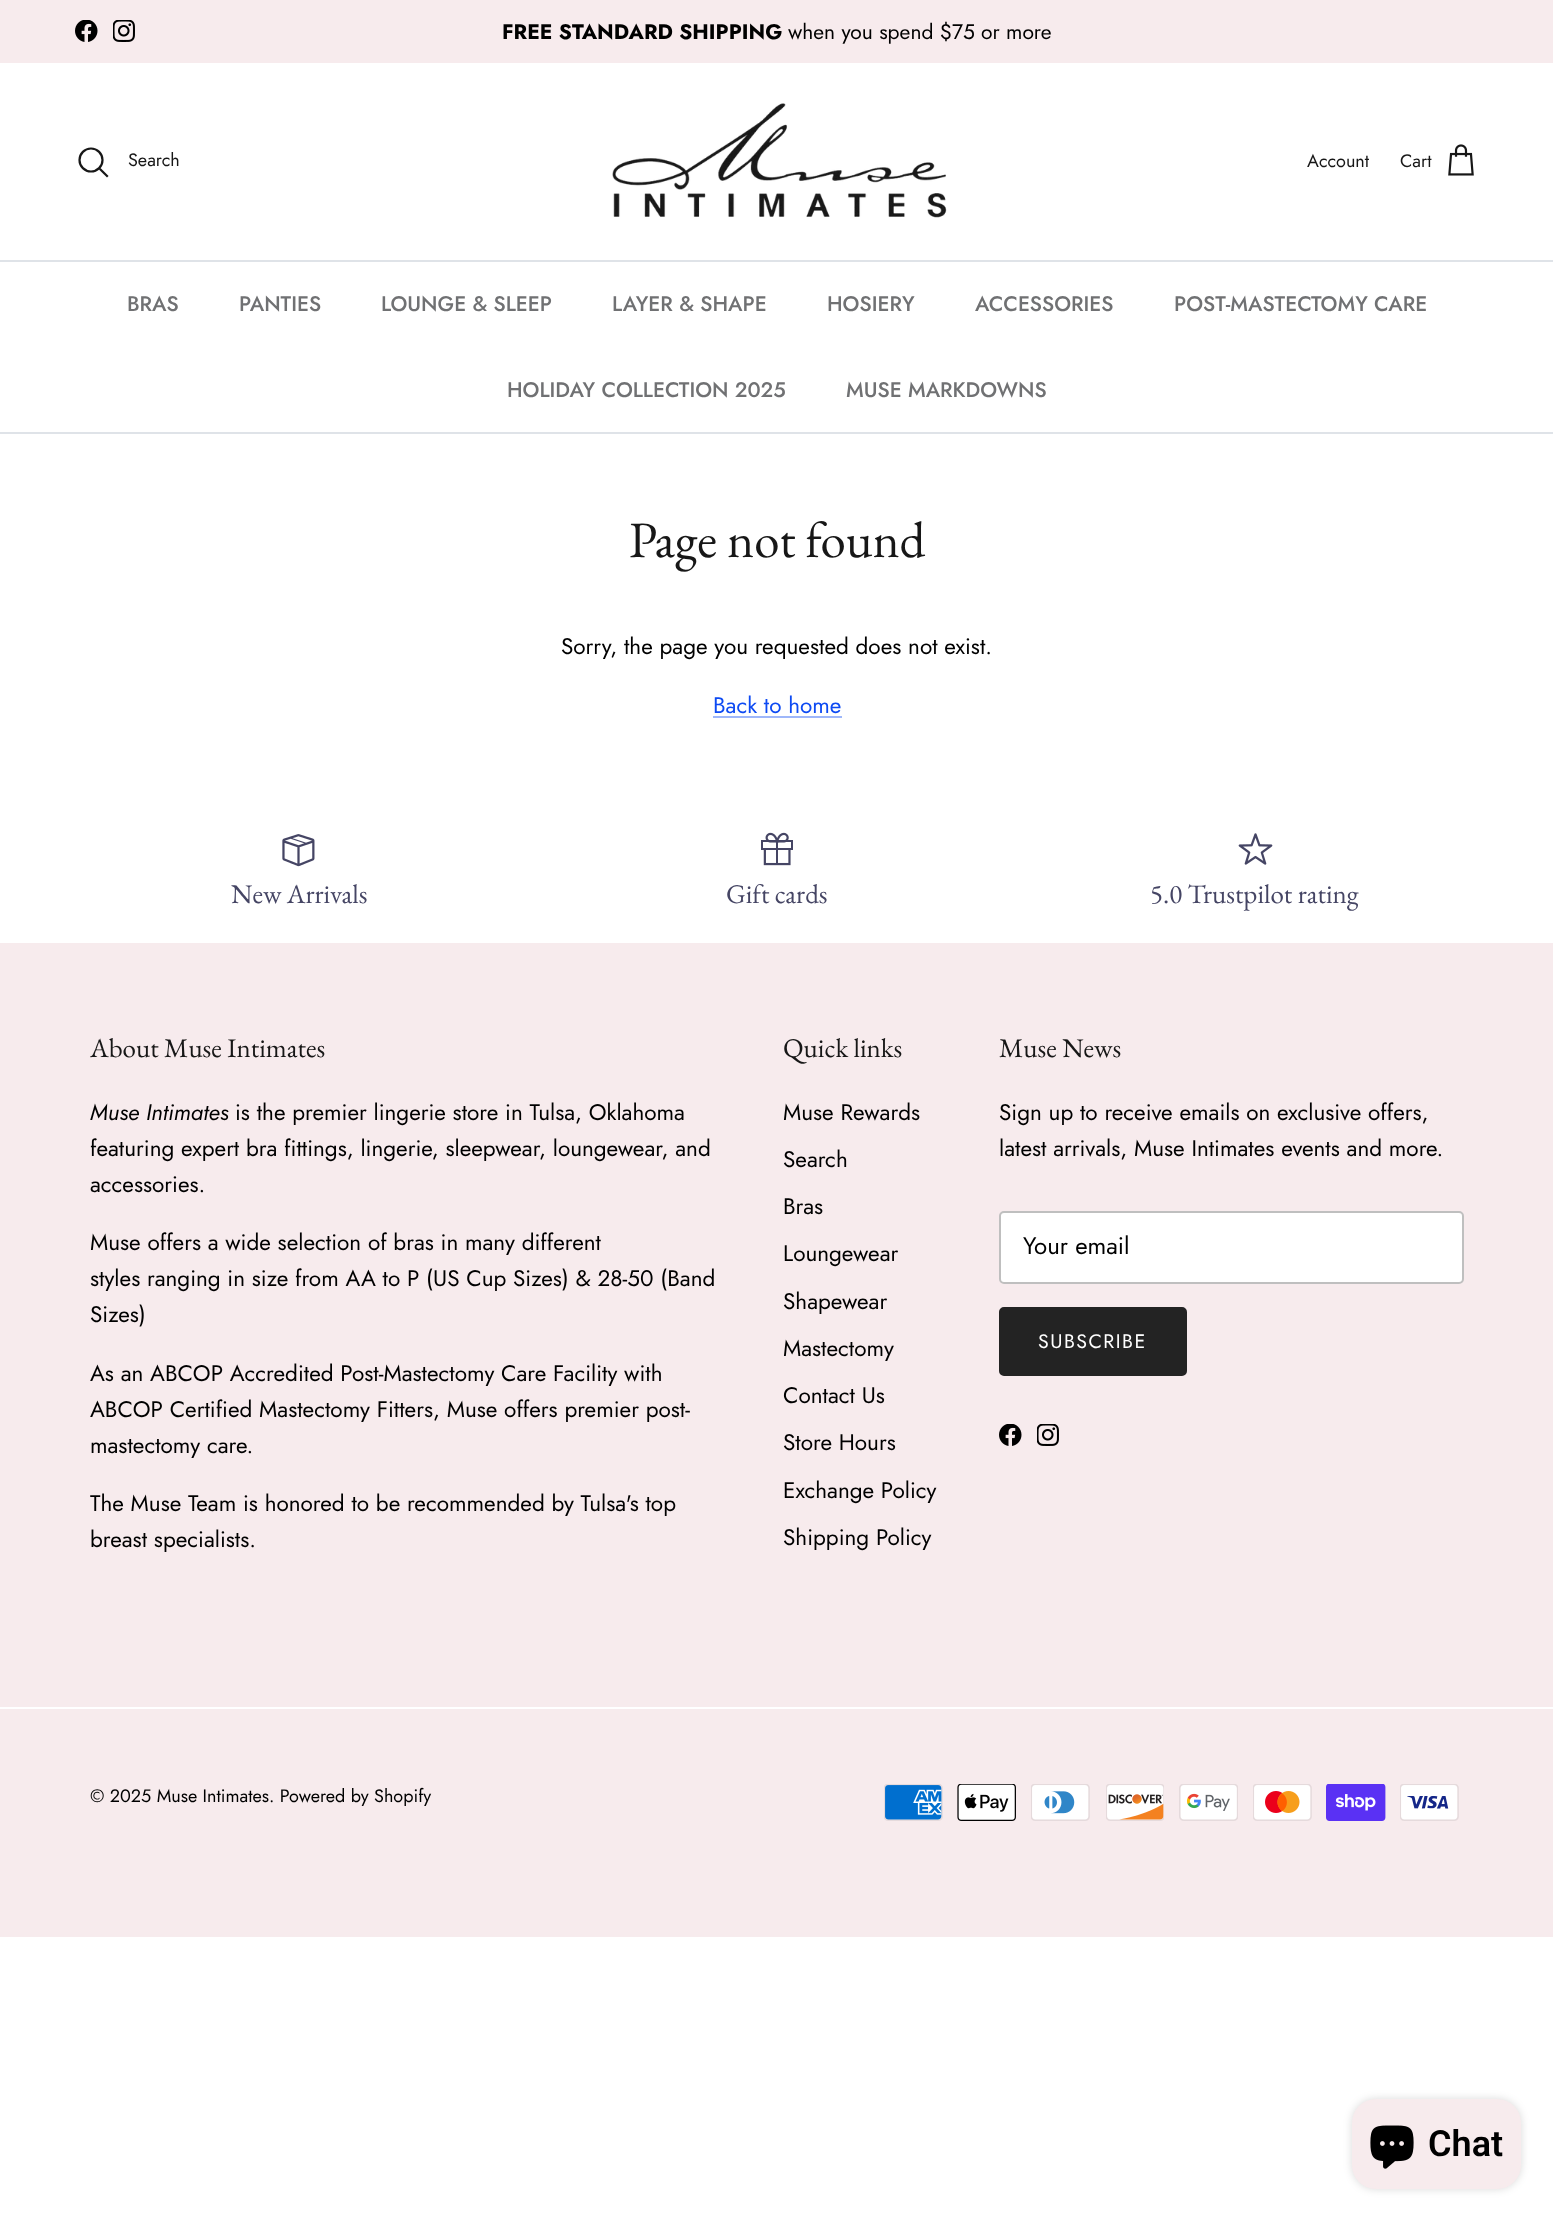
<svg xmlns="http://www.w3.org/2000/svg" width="1553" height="2219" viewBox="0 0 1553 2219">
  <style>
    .t1 { font: bold 21px Jost; fill: #000; }
    .t2 { font: 21px Jost; fill: #000; }
    .t3 { font: 18px Jost; fill: #171717; }
    .t4 { font: 500 21px Jost; fill: #707173; }
    .t5 { font: 51px EB Garamond; fill: #171717; }
    .t6 { font: 22.5px Jost; fill: #000; }
    .t7 { font: 22.5px Jost; fill: #0d4af3; }
    .t8 { font: 27px EB Garamond; fill: #454564; }
    .t9 { font: 27px EB Garamond; fill: #171717; }
    .t10 { font: italic 22.5px Jost; fill: #000; }
    .t11 { font: 24px Jost; fill: #000; }
    .t12 { font: 19.5px Jost; letter-spacing: 1.5px; fill: #fff; }
    .t13 { font: 18px Jost; fill: #000; }
    .t14 { font: 600 36px Roboto; fill: #000; }
  </style>
  <rect width="100%" height="100%" fill="#fff"/>
  <rect x="0" y="0" width="1553" height="63" fill="#f7ebed"/>
  <image x="75" y="20" width="23" height="22" href="images/1.png"/>
  <image x="113" y="20" width="22" height="22" href="images/2.png"/>
  <text x="502" y="39" class="t1">FREE STANDARD SHIPPING</text>
  <text x="788" y="39" class="t2">when you spend $75 or more</text>
  <rect x="0" y="260" width="1553" height="2" fill="#dfe3e8"/>
  <circle cx="91" cy="160" r="11.5" fill="none" stroke="#171717" stroke-width="2.2"/>
  <text x="128" y="166" class="t3">Search</text>
  <path d="M100.5 169.5L107 176" fill="none" stroke="#171717" stroke-width="2.2" stroke-linecap="square"/>
  <image x="612" y="103" width="335" height="115" href="images/3.png"/>
  <text x="1307" y="167" class="t3">Account</text>
  <text x="1400" y="167" class="t3">Cart</text>
  <image x="1448" y="144" width="26" height="32" href="images/4.png"/>
  <rect x="0" y="432" width="1553" height="2" fill="#dfe3e8"/>
  <text x="127" y="311" class="t4">BRAS</text>
  <text x="239" y="311" class="t4">PANTIES</text>
  <text x="381" y="311" class="t4">LOUNGE &amp; SLEEP</text>
  <text x="612" y="311" class="t4">LAYER &amp; SHAPE</text>
  <text x="827" y="311" class="t4">HOSIERY</text>
  <text x="975" y="311" class="t4">ACCESSORIES</text>
  <text x="1174" y="311" class="t4">POST-MASTECTOMY CARE</text>
  <text x="507" y="397" class="t4">HOLIDAY COLLECTION 2025</text>
  <text x="846" y="397" class="t4">MUSE MARKDOWNS</text>
  <text x="629" y="557" class="t5">Page not found</text>
  <text x="561" y="654" class="t6">Sorry, the page you requested does not exist.</text>
  <text x="713" y="713" class="t7">Back to home</text>
  <rect x="713" y="716" width="129" height="2" fill="#9eb7fa"/>
  <image x="282" y="834" width="33" height="33" href="images/5.png"/>
  <text x="231" y="903" class="t8">New Arrivals</text>
  <image x="761" y="832" width="32" height="34" href="images/6.png"/>
  <text x="726" y="903" class="t8">Gift cards</text>
  <image x="1238" y="833" width="35" height="32" href="images/7.png"/>
  <text x="1150" y="903" class="t8">5.0 Trustpilot rating</text>
  <rect x="0" y="943" width="1553" height="994" fill="#f7ebed"/>
  <text x="90" y="1057" class="t9">About Muse Intimates</text>
  <text x="90" y="1120" class="t10">Muse Intimates</text>
  <text x="235" y="1120" class="t6">is the premier lingerie store in Tulsa, Oklahoma</text>
  <text x="90" y="1156" class="t6">featuring expert bra fittings, lingerie, sleepwear, loungewear, and</text>
  <text x="90" y="1192" class="t6">accessories.</text>
  <text x="90" y="1250" class="t6">Muse offers a wide selection of bras in many different</text>
  <text x="90" y="1286" class="t6">styles ranging in size from AA to P (US Cup Sizes) &amp; 28-50 (Band</text>
  <text x="90" y="1322" class="t6">Sizes)</text>
  <text x="90" y="1381" class="t6">As an ABCOP Accredited Post-Mastectomy Care Facility with</text>
  <text x="90" y="1417" class="t6">ABCOP Certified Mastectomy Fitters, Muse offers premier post-</text>
  <text x="90" y="1453" class="t6">mastectomy care.</text>
  <text x="90" y="1511" class="t6">The Muse Team is honored to be recommended by Tulsa's top</text>
  <text x="90" y="1547" class="t6">breast specialists.</text>
  <text x="783" y="1057" class="t9">Quick links</text>
  <text x="783" y="1120" class="t6">Muse Rewards</text>
  <text x="783" y="1167" class="t6">Search</text>
  <text x="783" y="1214" class="t6">Bras</text>
  <text x="783" y="1261" class="t6">Loungewear</text>
  <text x="783" y="1309" class="t6">Shapewear</text>
  <text x="783" y="1356" class="t6">Mastectomy</text>
  <text x="783" y="1403" class="t6">Contact Us</text>
  <text x="783" y="1450" class="t6">Store Hours</text>
  <text x="783" y="1498" class="t6">Exchange Policy</text>
  <text x="783" y="1545" class="t6">Shipping Policy</text>
  <text x="999" y="1057" class="t9">Muse News</text>
  <text x="999" y="1120" class="t6">Sign up to receive emails on exclusive offers,</text>
  <text x="999" y="1156" class="t6">latest arrivals, Muse Intimates events and more.</text>
  <rect x="1000" y="1212" width="463" height="71" rx="4" fill="#fff" stroke="#bfbfbf" stroke-width="2"/>
  <text x="1023" y="1254" class="t11">Your email</text>
  <rect x="1000" y="1308" width="186" height="67" rx="4" fill="#232323" stroke="#232323" stroke-width="2"/>
  <text x="1038" y="1348" class="t12">SUBSCRIBE</text>
  <image x="999" y="1424" width="23" height="22" href="images/1.png"/>
  <image x="1037" y="1424" width="22" height="22" href="images/2.png"/>
  <rect x="0" y="1707" width="1553" height="2" fill="#fff"/>
  <text x="90" y="1802" class="t13">© 2025 Muse Intimates. Powered by Shopify</text>
  <image x="884" y="1784" width="59" height="37" href="images/8.png"/>
  <image x="957" y="1784" width="59" height="37" href="images/9.png"/>
  <image x="1031" y="1784" width="59" height="37" href="images/10.png"/>
  <image x="1106" y="1784" width="58" height="37" href="images/11.png"/>
  <image x="1179" y="1784" width="59" height="37" href="images/12.png"/>
  <image x="1253" y="1784" width="59" height="37" href="images/13.png"/>
  <image x="1326" y="1784" width="60" height="37" href="images/14.png"/>
  <image x="1400" y="1784" width="59" height="37" href="images/15.png"/>
  <rect x="1352" y="2099" width="169" height="90" rx="24" fill="#00000026" filter="blur(4px)"/>
  <rect x="1352" y="2099" width="169" height="90" rx="24" fill="#f7ebed"/>
  <image x="1370" y="2125" width="44" height="44" href="images/16.png"/>
  <text x="1428" y="2156" class="t14">Chat</text>
</svg>
